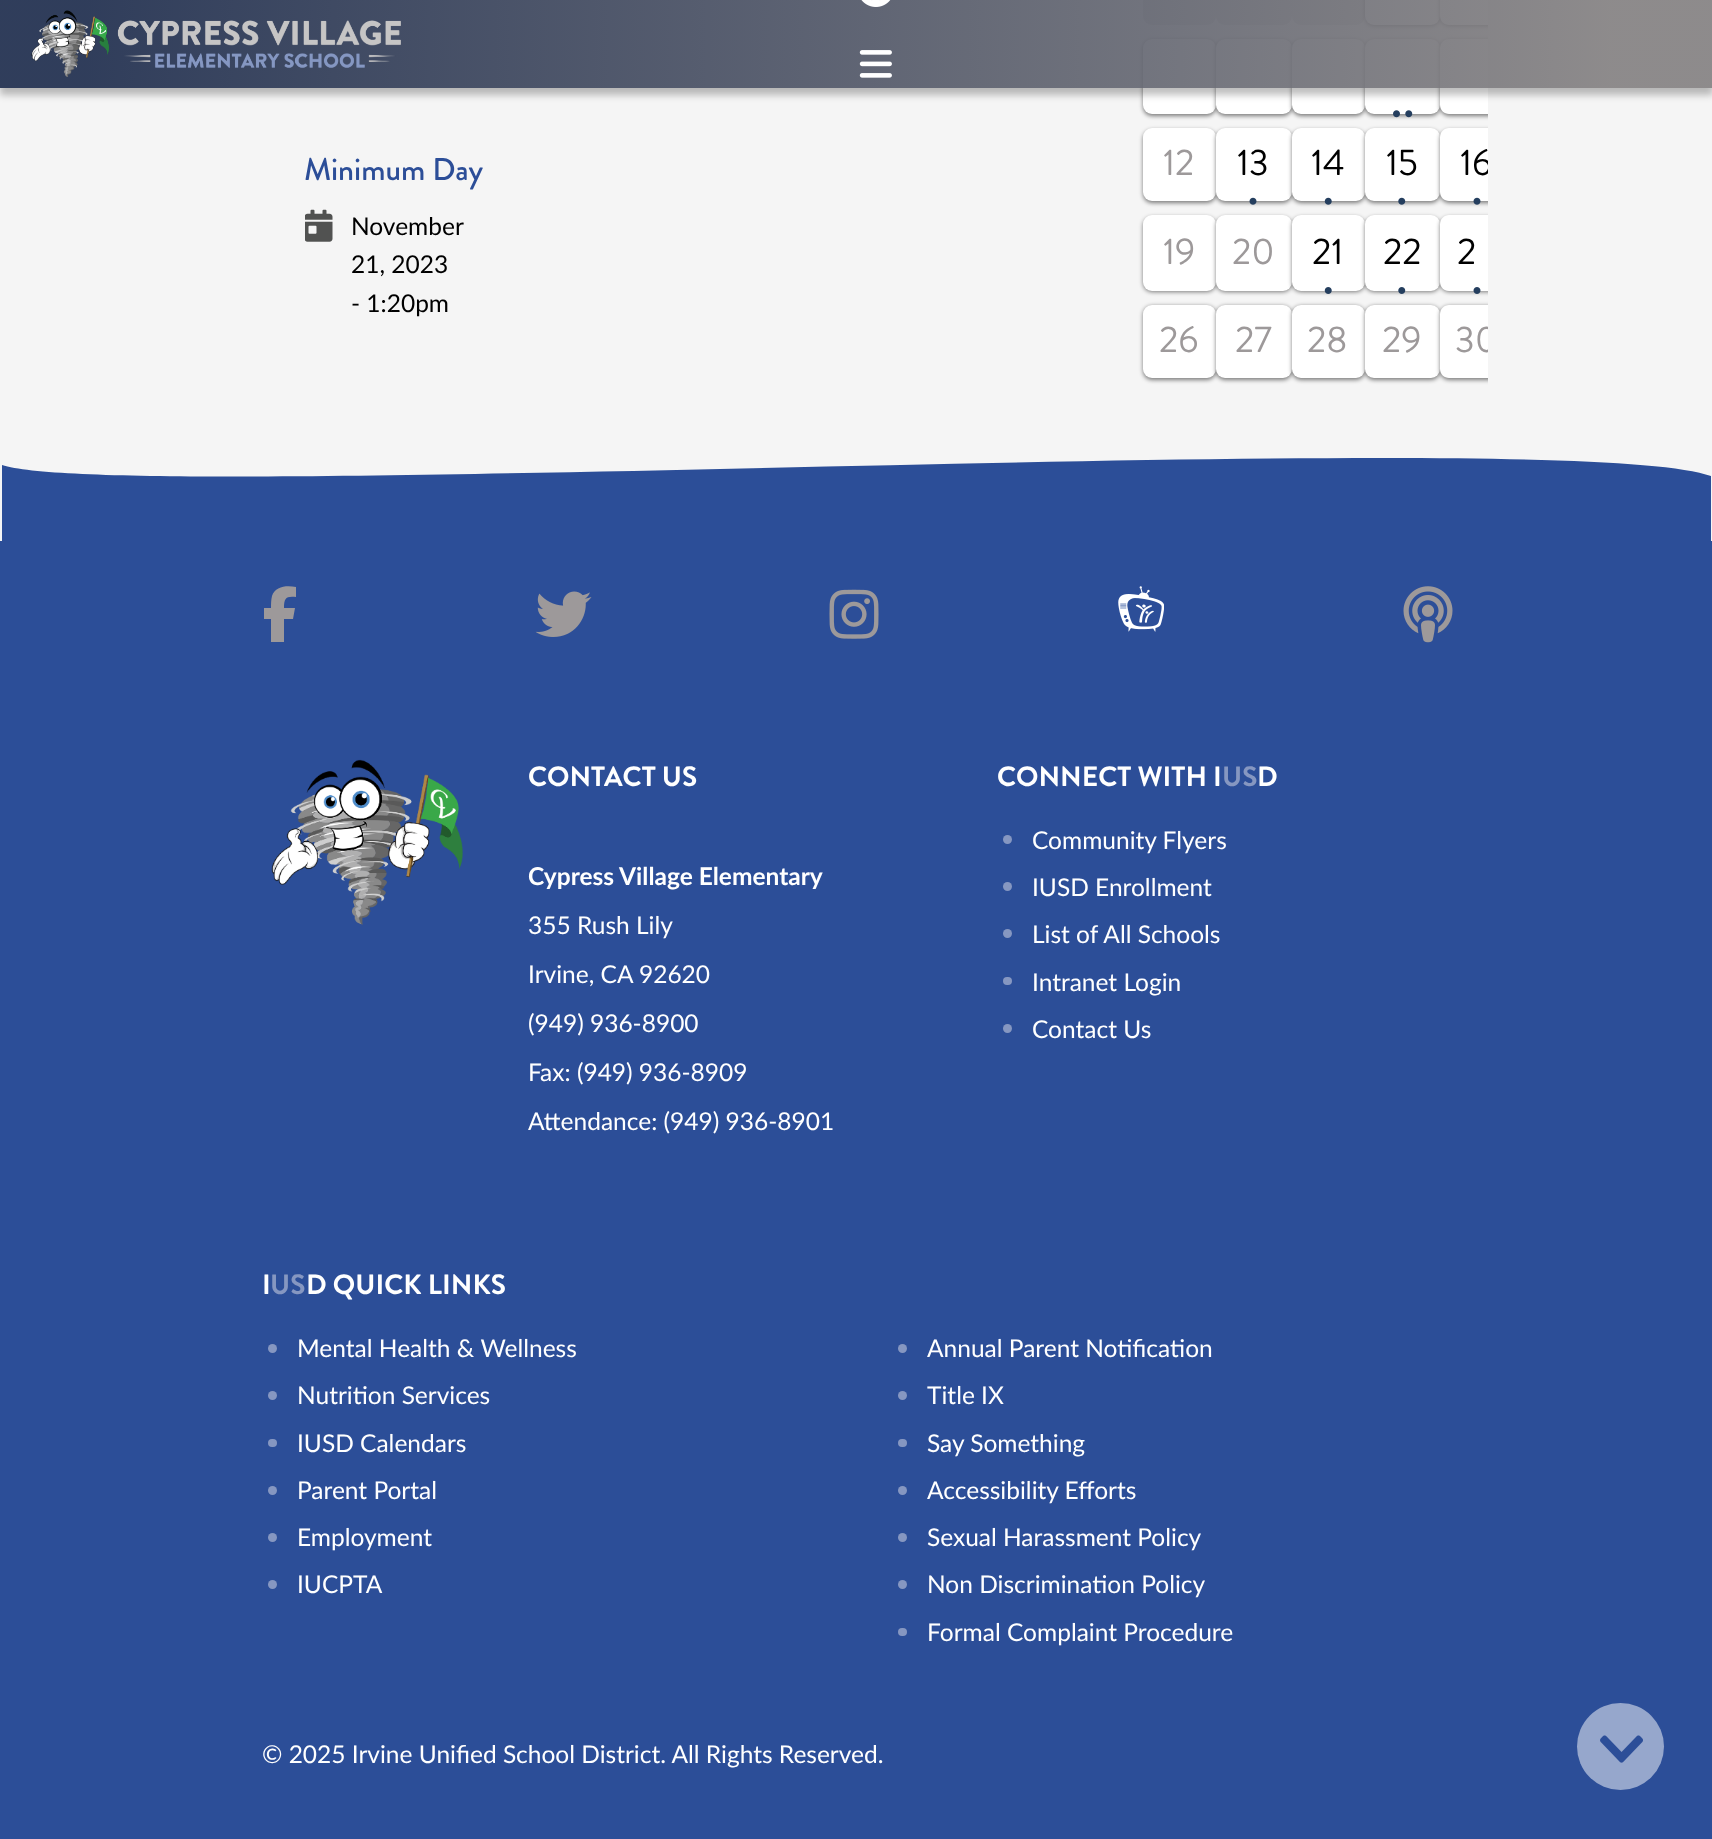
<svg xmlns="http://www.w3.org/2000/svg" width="1712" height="1839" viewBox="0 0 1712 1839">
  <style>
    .t1 { font: 500 31.5px Brandon Grotesque; fill: #2c4e98; }
    .t2 { font: 24.5px Lato; fill: #000; }
    .t3 { font: 37px Brandon Grotesque; fill: #9d999a; }
    .t4 { font: 37px Brandon Grotesque; fill: #000; }
    .t5 { font: bold 28px Brandon Grotesque; fill: #fff; }
    .t6 { font: bold 24.5px Lato; fill: #fff; }
    .t7 { font: 24.5px Lato; fill: #fff; }
    .t8 { font: bold 28px Brandon Grotesque; fill: #8697c1; }
  </style>
  <defs>
    <clipPath id="clip1"><rect x="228" y="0" width="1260" height="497"/></clipPath>
    <clipPath id="clip2"><path d="M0 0H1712V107H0ZM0 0H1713V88H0Z" clip-rule="evenodd"/></clipPath>
    <linearGradient id="g1" gradientUnits="userSpaceOnUse" x1="0" y1="44" x2="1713" y2="43"><stop offset="0.05" stop-color="#1a294a" stop-opacity="0.9"/><stop offset="0.94" stop-color="#827f80" stop-opacity="0.9"/></linearGradient>
    <clipPath id="clip3"><rect x="228" y="0" width="1260" height="497"/></clipPath>
    <clipPath id="clip4"><rect x="0" y="457" width="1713" height="87"/></clipPath>
  </defs>
  <rect width="100%" height="100%" fill="#f5f5f5"/>
  <rect x="1143" y="-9" width="73" height="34" rx="9" fill="#ddd"/>
  <rect x="1216" y="-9" width="76" height="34" rx="9" fill="#ddd"/>
  <rect x="1292" y="-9" width="73" height="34" rx="9" fill="#ddd"/>
  <rect x="1365" y="-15" width="75" height="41" rx="9" fill="#00000080" filter="blur(2px)"/>
  <rect x="1365" y="-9" width="75" height="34" rx="9" fill="#fff"/>
  <g clip-path="url(#clip1)">
    <rect x="1440" y="-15" width="74" height="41" rx="9" fill="#00000080" filter="blur(2px)"/>
  </g>
  <path d="M1449-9H1488V25H1449C1444 25 1440 21 1440 16V0C1440-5 1444-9 1449-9Z" fill="#fff"/>
  <rect x="1143" y="40" width="73" height="76" rx="9" fill="#00000080" filter="blur(2px)"/>
  <rect x="1143" y="39" width="73" height="75" rx="9" fill="#fff"/>
  <rect x="1216" y="40" width="76" height="76" rx="9" fill="#00000080" filter="blur(2px)"/>
  <rect x="1216" y="39" width="76" height="75" rx="9" fill="#fff"/>
  <rect x="1292" y="40" width="73" height="76" rx="9" fill="#00000080" filter="blur(2px)"/>
  <rect x="1292" y="39" width="73" height="75" rx="9" fill="#fff"/>
  <rect x="1365" y="40" width="75" height="76" rx="9" fill="#00000080" filter="blur(2px)"/>
  <rect x="1365" y="39" width="75" height="75" rx="9" fill="#fff"/>
  <g clip-path="url(#clip1)">
    <rect x="1440" y="40" width="74" height="76" rx="9" fill="#00000080" filter="blur(2px)"/>
  </g>
  <path d="M1449 39H1488V114H1449C1444 114 1440 110 1440 105V48C1440 43 1444 39 1449 39Z" fill="#fff"/>
  <g clip-path="url(#clip2)">
    <rect x="0" y="7" width="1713" height="88" fill="#00000040" filter="blur(3.5px)"/>
  </g>
  <rect x="0" y="0" width="1712" height="88" fill="url(#g1)"/>
  <image x="31" y="10" width="370" height="67" href="images/1.png"/>
  <image x="861" y="0" width="30" height="7" href="images/2.png"/>
  <image x="859" y="50" width="33" height="28" href="images/3.png"/>
  <text x="304" y="180" class="t1">Minimum Day</text>
  <image x="305" y="209" width="28" height="33" href="images/4.png"/>
  <text x="351" y="235" class="t2">November</text>
  <text x="351" y="273" class="t2">21, 2023</text>
  <text x="351" y="312" class="t2">- 1:20pm</text>
  <image x="1393" y="110" width="7" height="8" href="images/5.png"/>
  <image x="1405" y="110" width="8" height="8" href="images/6.png"/>
  <rect x="1143" y="130" width="73" height="73" rx="9" fill="#00000080" filter="blur(2px)"/>
  <rect x="1143" y="128" width="73" height="73" rx="9" fill="#fff"/>
  <text x="1163" y="175" class="t3">12</text>
  <rect x="1216" y="130" width="76" height="73" rx="9" fill="#00000080" filter="blur(2px)"/>
  <rect x="1216" y="128" width="76" height="73" rx="9" fill="#fff"/>
  <text x="1237" y="175" class="t4">13</text>
  <rect x="1292" y="130" width="73" height="73" rx="9" fill="#00000080" filter="blur(2px)"/>
  <rect x="1292" y="128" width="73" height="73" rx="9" fill="#fff"/>
  <text x="1311" y="175" class="t4">14</text>
  <rect x="1365" y="130" width="75" height="73" rx="9" fill="#00000080" filter="blur(2px)"/>
  <rect x="1365" y="128" width="75" height="73" rx="9" fill="#fff"/>
  <text x="1386" y="175" class="t4">15</text>
  <g clip-path="url(#clip1)">
    <rect x="1440" y="130" width="74" height="73" rx="9" fill="#00000080" filter="blur(2px)"/>
  </g>
  <path d="M1449 128H1488V201H1449C1444 201 1440 197 1440 192V137C1440 132 1444 128 1449 128Z" fill="#fff"/>
  <g clip-path="url(#clip3)">
    <text x="1460" y="175" class="t4">16</text>
  </g>
  <image x="1249" y="197" width="8" height="8" href="images/7.png"/>
  <image x="1324" y="197" width="8" height="8" href="images/8.png"/>
  <image x="1398" y="197" width="8" height="8" href="images/9.png"/>
  <image x="1473" y="197" width="8" height="8" href="images/7.png"/>
  <rect x="1143" y="217" width="73" height="75" rx="9" fill="#00000080" filter="blur(2px)"/>
  <rect x="1143" y="215" width="73" height="76" rx="9" fill="#fff"/>
  <text x="1163" y="264" class="t3">19</text>
  <rect x="1216" y="217" width="76" height="75" rx="9" fill="#00000080" filter="blur(2px)"/>
  <rect x="1216" y="215" width="76" height="76" rx="9" fill="#fff"/>
  <text x="1232" y="264" class="t3">20</text>
  <rect x="1292" y="217" width="73" height="75" rx="9" fill="#00000080" filter="blur(2px)"/>
  <rect x="1292" y="215" width="73" height="76" rx="9" fill="#fff"/>
  <text x="1312" y="264" class="t4">21</text>
  <rect x="1365" y="217" width="75" height="75" rx="9" fill="#00000080" filter="blur(2px)"/>
  <rect x="1365" y="215" width="75" height="76" rx="9" fill="#fff"/>
  <text x="1383" y="264" class="t4">22</text>
  <g clip-path="url(#clip1)">
    <rect x="1440" y="217" width="74" height="75" rx="9" fill="#00000080" filter="blur(2px)"/>
  </g>
  <path d="M1449 215H1488V291H1449C1444 291 1440 287 1440 282V224C1440 219 1444 215 1449 215Z" fill="#fff"/>
  <text x="1457" y="264" class="t4">2</text>
  <image x="1324" y="287" width="8" height="7" href="images/10.png"/>
  <image x="1398" y="287" width="8" height="7" href="images/11.png"/>
  <image x="1473" y="287" width="8" height="7" href="images/12.png"/>
  <rect x="1143" y="306" width="73" height="74" rx="9" fill="#00000080" filter="blur(2px)"/>
  <rect x="1143" y="305" width="73" height="73" rx="9" fill="#fff"/>
  <text x="1159" y="352" class="t3">26</text>
  <rect x="1216" y="306" width="76" height="74" rx="9" fill="#00000080" filter="blur(2px)"/>
  <rect x="1216" y="305" width="76" height="73" rx="9" fill="#fff"/>
  <text x="1235" y="352" class="t3">27</text>
  <rect x="1292" y="306" width="73" height="74" rx="9" fill="#00000080" filter="blur(2px)"/>
  <rect x="1292" y="305" width="73" height="73" rx="9" fill="#fff"/>
  <text x="1307" y="352" class="t3">28</text>
  <rect x="1365" y="306" width="75" height="74" rx="9" fill="#00000080" filter="blur(2px)"/>
  <rect x="1365" y="305" width="75" height="73" rx="9" fill="#fff"/>
  <text x="1382" y="352" class="t3">29</text>
  <g clip-path="url(#clip1)">
    <rect x="1440" y="306" width="74" height="74" rx="9" fill="#00000080" filter="blur(2px)"/>
  </g>
  <path d="M1449 305H1488V378H1449C1444 378 1440 374 1440 369V314C1440 309 1444 305 1449 305Z" fill="#fff"/>
  <g clip-path="url(#clip3)">
    <text x="1455" y="352" class="t3">30</text>
  </g>
  <rect x="0" y="541" width="1712" height="1298" fill="#2c4e98"/>
  <g clip-path="url(#clip4)">
    <path d="M2 465C123 505 1569 424 1711 476V959H2Z" fill="#2c4e98"/>
  </g>
  <path d="M271 619V642H284V619H293L295 608H284C284 598 286 596 296 597V587C287 585 275 586 272 596C271 600 271 604 271 608H264V619Z" fill="#9d999a"/>
  <image x="535" y="591" width="57" height="46" href="images/13.png"/>
  <image x="829" y="589" width="50" height="50" href="images/14.png"/>
  <image x="1118" y="586" width="46" height="46" href="images/15.png"/>
  <image x="1403" y="586" width="50" height="57" href="images/16.png"/>
  <image x="271" y="759" width="192" height="166" href="images/17.png"/>
  <text x="528" y="786" class="t5">CONTACT US</text>
  <text x="528" y="885" class="t6">Cypress Village Elementary</text>
  <text x="528" y="934" class="t7">355 Rush Lily</text>
  <text x="528" y="983" class="t7">Irvine, CA 92620</text>
  <text x="528" y="1032" class="t7">(949) 936-8900</text>
  <text x="528" y="1081" class="t7">Fax: (949) 936-8909</text>
  <text x="528" y="1130" class="t7">Attendance: (949) 936-8901</text>
  <text x="997" y="786" class="t5">CONNECT WITH I</text>
  <text x="1222" y="786" class="t8">US</text>
  <text x="1257" y="786" class="t5">D</text>
  <circle cx="1007.5" cy="839.5" r="4.5" fill="#8697c1"/>
  <text x="1032" y="849" class="t7">Community Flyers</text>
  <circle cx="1007.5" cy="886.5" r="4.5" fill="#8697c1"/>
  <text x="1032" y="896" class="t7">IUSD Enrollment</text>
  <circle cx="1007.5" cy="933.5" r="4.5" fill="#8697c1"/>
  <text x="1032" y="943" class="t7">List of All Schools</text>
  <rect x="1003" y="977" width="9" height="8" rx="4" fill="#8697c1"/>
  <text x="1032" y="991" class="t7">Intranet Login</text>
  <circle cx="1007.5" cy="1028.5" r="4.5" fill="#8697c1"/>
  <text x="1032" y="1038" class="t7">Contact Us</text>
  <text x="262" y="1294" class="t5">I</text>
  <text x="270" y="1294" class="t8">US</text>
  <text x="306" y="1294" class="t5">D QUICK LINKS</text>
  <circle cx="272.5" cy="1348.5" r="4.5" fill="#8697c1"/>
  <text x="297" y="1357" class="t7">Mental Health &amp; Wellness</text>
  <circle cx="272.5" cy="1395.5" r="4.5" fill="#8697c1"/>
  <text x="297" y="1404" class="t7">Nutrition Services</text>
  <rect x="268" y="1439" width="9" height="8" rx="4" fill="#8697c1"/>
  <text x="297" y="1452" class="t7">IUSD Calendars</text>
  <circle cx="272.5" cy="1490.5" r="4.5" fill="#8697c1"/>
  <text x="297" y="1499" class="t7">Parent Portal</text>
  <circle cx="272.5" cy="1537.5" r="4.5" fill="#8697c1"/>
  <text x="297" y="1546" class="t7">Employment</text>
  <circle cx="272.5" cy="1584.5" r="4.5" fill="#8697c1"/>
  <text x="297" y="1593" class="t7">IUCPTA</text>
  <circle cx="902.5" cy="1348.5" r="4.5" fill="#8697c1"/>
  <text x="927" y="1357" class="t7">Annual Parent Notification</text>
  <circle cx="902.5" cy="1395.5" r="4.5" fill="#8697c1"/>
  <text x="927" y="1404" class="t7">Title IX</text>
  <rect x="898" y="1439" width="9" height="8" rx="4" fill="#8697c1"/>
  <text x="927" y="1452" class="t7">Say Something</text>
  <circle cx="902.5" cy="1490.5" r="4.5" fill="#8697c1"/>
  <text x="927" y="1499" class="t7">Accessibility Efforts</text>
  <circle cx="902.5" cy="1537.5" r="4.5" fill="#8697c1"/>
  <text x="927" y="1546" class="t7">Sexual Harassment Policy</text>
  <circle cx="902.5" cy="1584.5" r="4.5" fill="#8697c1"/>
  <text x="927" y="1593" class="t7">Non Discrimination Policy</text>
  <rect x="898" y="1628" width="9" height="8" rx="4" fill="#8697c1"/>
  <text x="927" y="1641" class="t7">Formal Complaint Procedure</text>
  <text x="262" y="1763" class="t7">© 2025 Irvine Unified School District. All Rights Reserved.</text>
  <circle cx="1620.5" cy="1746.5" r="43.5" fill="#96a7cc"/>
  <image x="1600" y="1735" width="43" height="28" href="images/18.png"/>
</svg>
